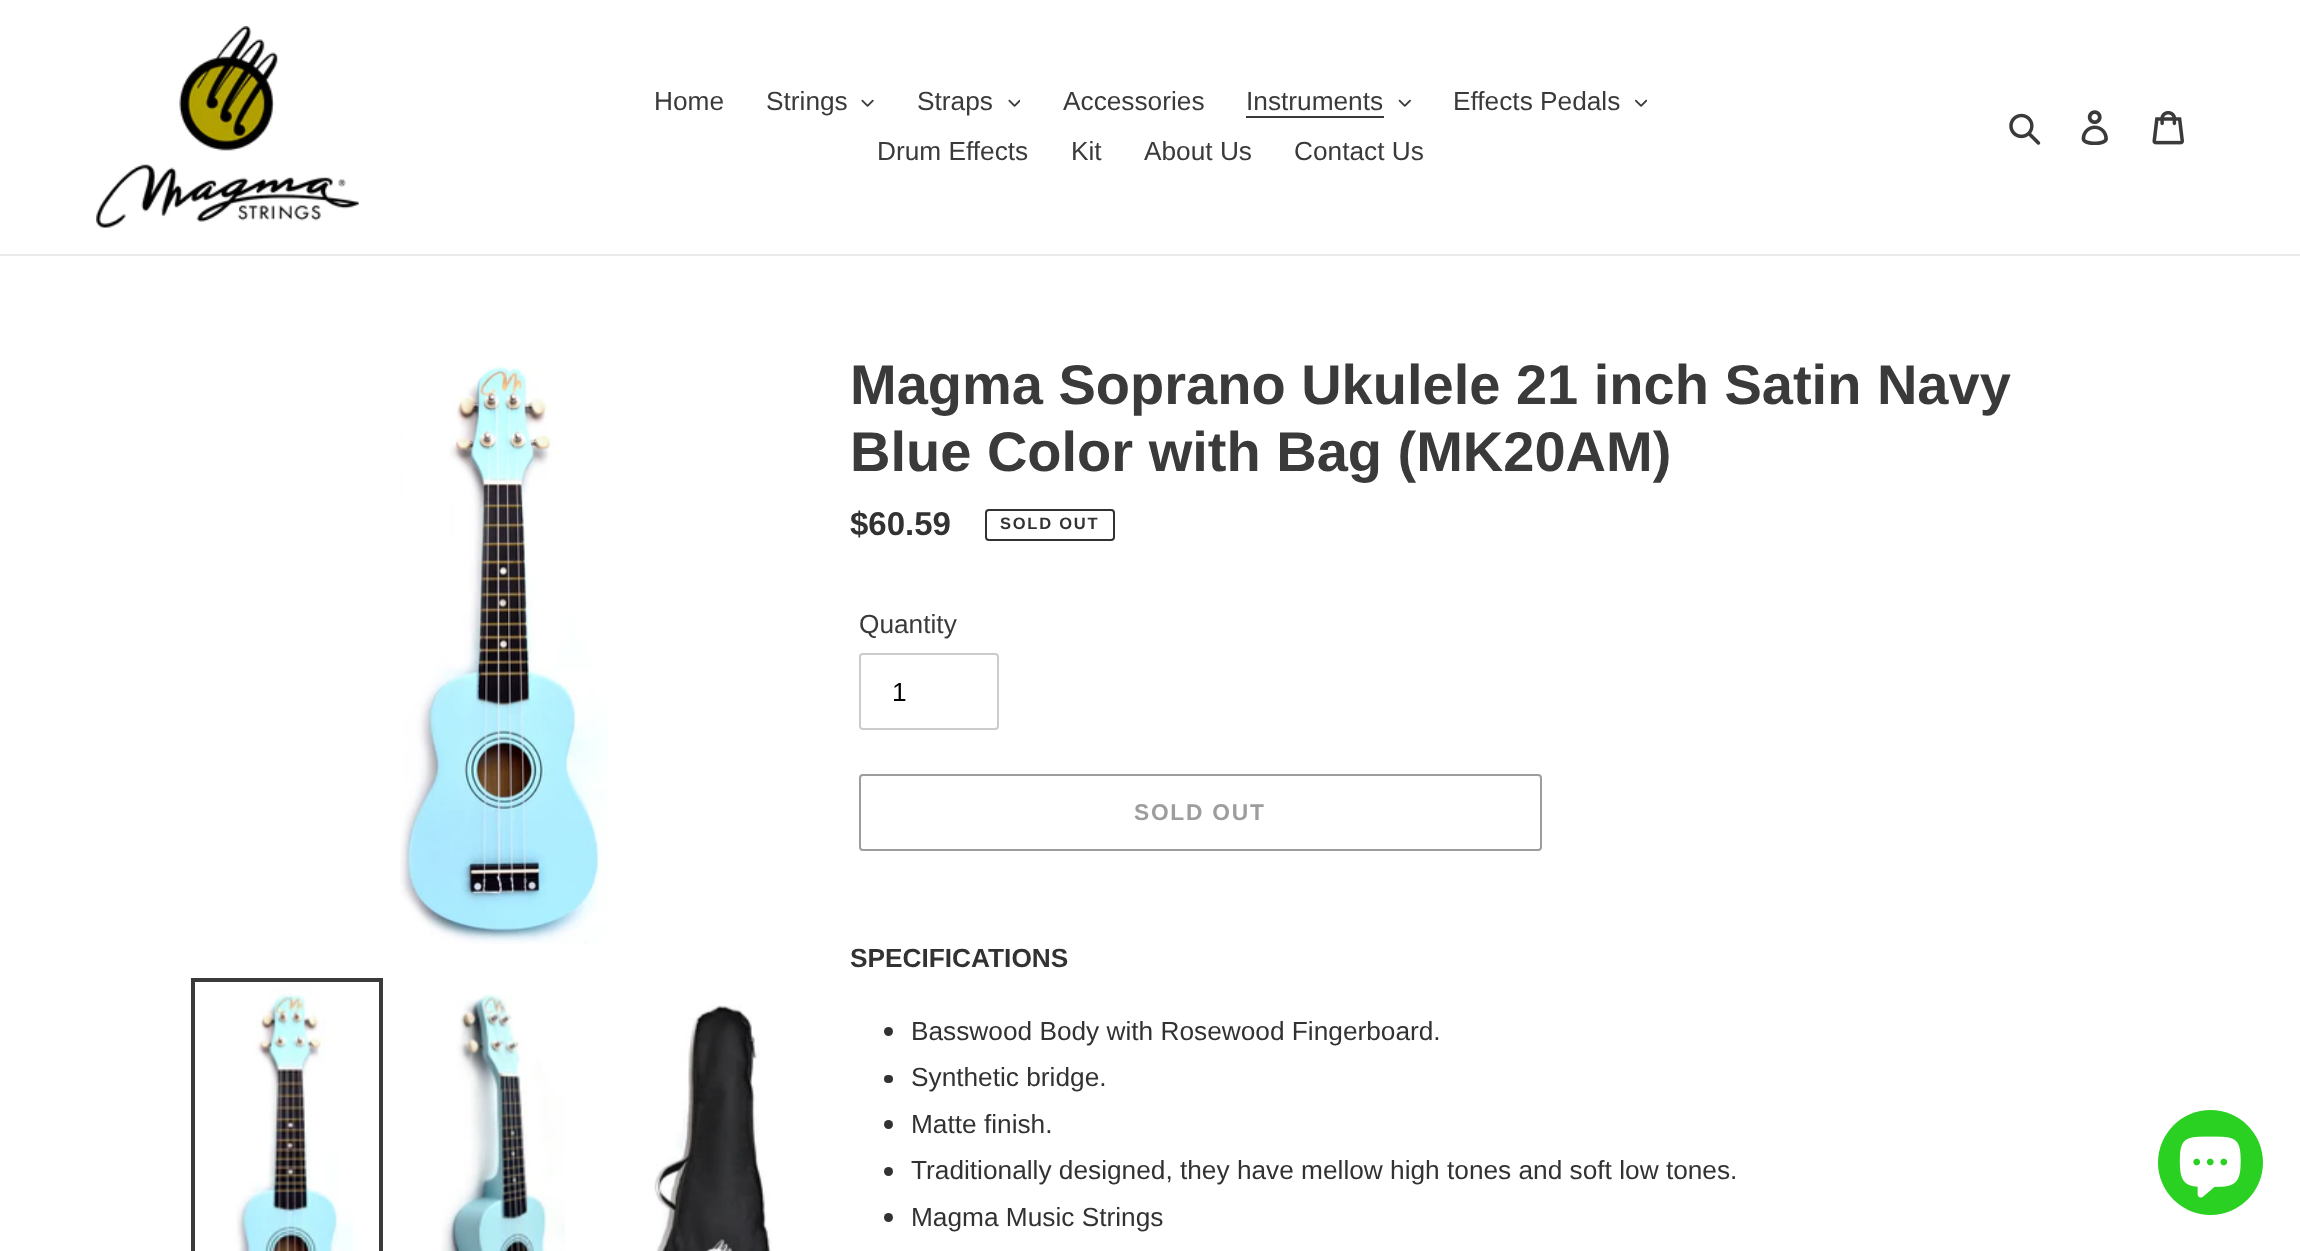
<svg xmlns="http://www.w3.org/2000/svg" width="2300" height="1251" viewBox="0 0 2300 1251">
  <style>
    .t1 { font: 26.25px Liberation Sans; fill: #3a3a3a; }
    .t2 { font: bold 56px Liberation Sans; fill: #3a3a3a; }
    .t3 { font: bold 33px Liberation Sans; fill: #333232; }
    .t4 { font: bold 16.5px Liberation Sans; letter-spacing: 1.75px; fill: #333232; }
    .t5 { font: 26.25px Liberation Sans; fill: #000; }
    .t6 { font: bold 22.75px Liberation Sans; letter-spacing: 1.75px; fill: #9d9d9d; }
    .t7 { font: bold 26.25px Liberation Sans; fill: #333232; }
    .t8 { font: 26.25px Liberation Sans; fill: #333232; }
  </style>
  <rect width="100%" height="100%" fill="#fff"/>
  <rect x="0" y="254" width="2300" height="2" fill="#ebebeb"/>
  <image x="96" y="26" width="263" height="202" href="images/1.png"/>
  <text x="654" y="110" class="t1">Home</text>
  <text x="766" y="110" class="t1">Strings</text>
  <image x="861" y="99" width="13" height="8" href="images/2.png"/>
  <text x="917" y="110" class="t1">Straps</text>
  <image x="1008" y="99" width="12" height="8" href="images/3.png"/>
  <text x="1063" y="110" class="t1">Accessories</text>
  <text x="1246" y="110" class="t1">Instruments</text>
  <rect x="1246" y="116" width="138" height="2" fill="#3a3a3a"/>
  <image x="1398" y="99" width="13" height="8" href="images/4.png"/>
  <text x="1453" y="110" class="t1">Effects Pedals</text>
  <image x="1635" y="99" width="12" height="8" href="images/5.png"/>
  <text x="877" y="160" class="t1">Drum Effects</text>
  <text x="1071" y="160" class="t1">Kit</text>
  <text x="1144" y="160" class="t1">About Us</text>
  <text x="1294" y="160" class="t1">Contact Us</text>
  <image x="2009" y="113" width="32" height="32" href="images/6.png"/>
  <image x="2081" y="110" width="27" height="35" href="images/7.png"/>
  <image x="2152" y="110" width="32" height="35" href="images/8.png"/>
  <image x="400" y="366" width="208" height="578" href="images/9.png"/>
  <rect x="193" y="980" width="188" height="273" fill="none" stroke="#3a3a3a" stroke-width="4"/>
  <image x="236" y="986" width="118" height="265" href="images/10.png"/>
  <image x="441" y="994" width="124" height="257" href="images/11.png"/>
  <image x="654" y="1005" width="118" height="246" href="images/12.png"/>
  <text x="850" y="404" class="t2">Magma Soprano Ukulele 21 inch Satin Navy</text>
  <text x="850" y="471" class="t2">Blue Color with Bag (MK20AM)</text>
  <text x="850" y="535" class="t3">$60.59</text>
  <rect x="986" y="510" width="128" height="30" rx="3" fill="none" stroke="#333232" stroke-width="2"/>
  <text x="1000" y="529" class="t4">SOLD OUT</text>
  <text x="859" y="633" class="t1">Quantity</text>
  <rect x="860" y="654" width="138" height="75" rx="3" fill="none" stroke="#ccc" stroke-width="2"/>
  <text x="892" y="701" class="t5">1</text>
  <rect x="860" y="775" width="681" height="75" rx="3" fill="none" stroke="#9d9d9d" stroke-width="2"/>
  <text x="1134" y="820" class="t6">SOLD OUT</text>
  <text x="850" y="967" class="t7">SPECIFICATIONS</text>
  <circle cx="888.5" cy="1031.5" r="4.5" fill="#333232"/>
  <text x="911" y="1040" class="t8">Basswood Body with Rosewood Fingerboard.</text>
  <rect x="884" y="1075" width="9" height="8" rx="4" fill="#333232"/>
  <text x="911" y="1086" class="t8">Synthetic bridge.</text>
  <circle cx="888.5" cy="1124.5" r="4.5" fill="#333232"/>
  <text x="911" y="1133" class="t8">Matte finish.</text>
  <circle cx="888.5" cy="1171.5" r="4.5" fill="#333232"/>
  <text x="911" y="1179" class="t8">Traditionally designed, they have mellow high tones and soft low tones.</text>
  <circle cx="888.5" cy="1217.5" r="4.5" fill="#333232"/>
  <text x="911" y="1226" class="t8">Magma Music Strings</text>
  <circle cx="2210.5" cy="1162.5" r="52.5" fill="#2ad122"/>
  <image x="2179" y="1136" width="62" height="62" href="images/13.png"/>
</svg>
